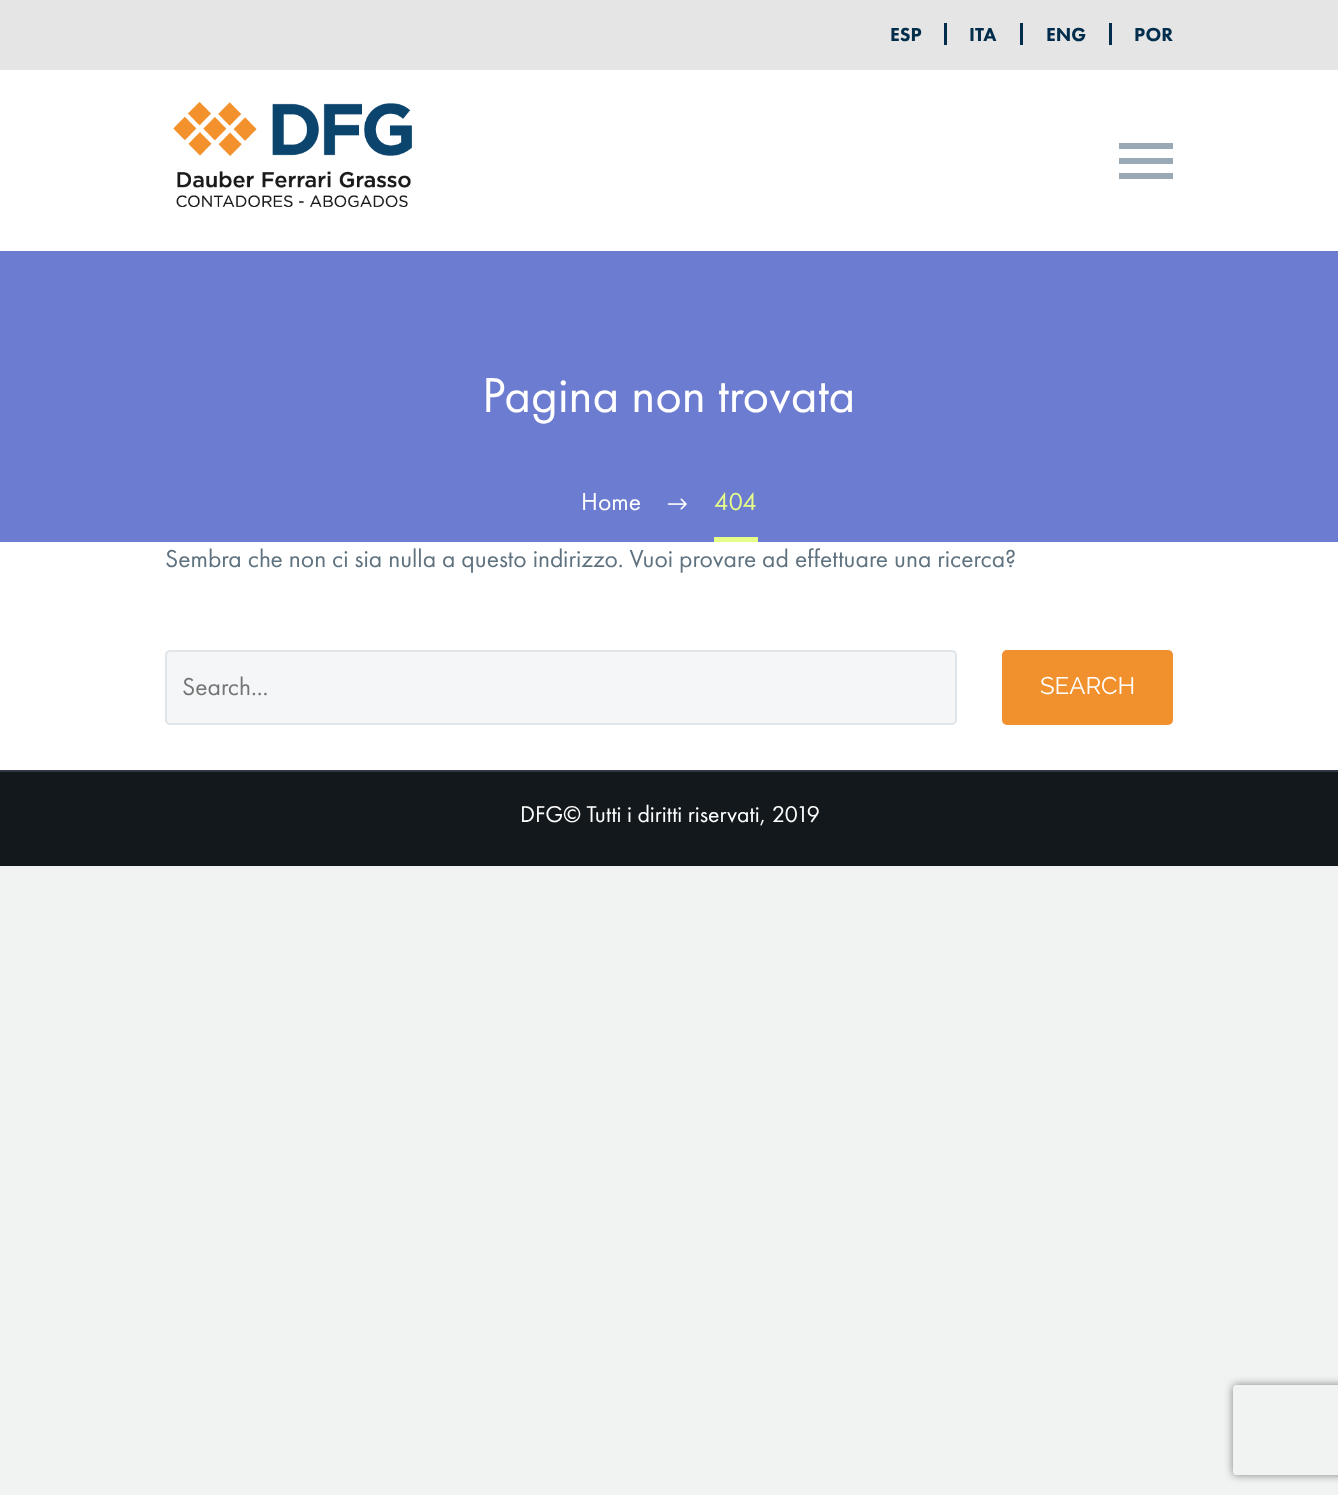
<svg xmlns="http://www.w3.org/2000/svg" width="1338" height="1495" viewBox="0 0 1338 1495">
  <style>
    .t1 { font: 900 19.5px Futura PT; fill: #002d4b; }
    .t2 { font: 51px Futura PT; fill: #fff; }
    .t3 { font: 25.5px Futura PT; fill: #fff; }
    .t4 { font: 25.5px Futura PT; fill: #e7ff89; }
    .t5 { font: 25.5px Futura PT; fill: #5f727f; }
    .t6 { font: 25.5px Futura PT; fill: #757575; }
    .t7 { font: 24px Raleway; fill: #fff; }
    .t8 { font: 23.75px Futura PT; fill: #fff; }
  </style>
  <defs>
    <clipPath id="clip1"><path d="M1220 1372H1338V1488H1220ZM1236 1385H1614C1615.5 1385 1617 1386.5 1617 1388V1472C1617 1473.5 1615.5 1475 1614 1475H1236C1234.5 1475 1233 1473.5 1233 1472V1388C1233 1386.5 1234.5 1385 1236 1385Z" clip-rule="evenodd"/></clipPath>
  </defs>
  <rect width="100%" height="100%" fill="#f0f3f2"/>
  <rect x="0" y="0" width="1338" height="70" fill="#e5e5e5"/>
  <rect x="944" y="23" width="3" height="22" fill="#002d4b"/>
  <text x="890" y="41" class="t1">ESP</text>
  <rect x="1020" y="23" width="3" height="22" fill="#002d4b"/>
  <text x="969" y="41" class="t1">ITA</text>
  <rect x="1109" y="23" width="3" height="22" fill="#002d4b"/>
  <text x="1046" y="41" class="t1">ENG</text>
  <text x="1134" y="41" class="t1">POR</text>
  <rect x="0" y="70" width="1338" height="181" fill="#fff"/>
  <image x="173" y="101" width="239" height="106" href="images/1.png"/>
  <rect x="1119" y="143" width="54" height="6" fill="#99a9b5"/>
  <rect x="1119" y="158" width="54" height="6" fill="#99a9b5"/>
  <rect x="1119" y="173" width="54" height="6" fill="#99a9b5"/>
  <rect x="0" y="251" width="1338" height="291" fill="#6c7cd0"/>
  <text x="482" y="412" class="t2">Pagina non trovata</text>
  <text x="581" y="510" class="t3">Home</text>
  <image x="667" y="498" width="20" height="12" href="images/2.png"/>
  <rect x="714" y="537" width="44" height="5" fill="#e7ff89"/>
  <text x="714" y="510" class="t4">404</text>
  <rect x="0" y="542" width="1338" height="228" fill="#fff"/>
  <text x="165" y="567" class="t5">Sembra che non ci sia nulla a questo indirizzo. Vuoi provare ad effettuare una ricerca?</text>
  <rect x="166" y="651" width="790" height="73" rx="4" fill="#f4f6f7" stroke="#dfe5e8" stroke-width="2"/>
  <text x="182" y="695" class="t6">Search...</text>
  <rect x="1002" y="650" width="171" height="75" rx="5" fill="#f1912d"/>
  <text x="1040" y="694" class="t7">SEARCH</text>
  <rect x="0" y="772" width="1338" height="94" fill="#12181c"/>
  <rect x="0" y="770" width="1338" height="2" fill="#313646"/>
  <text x="520" y="822" class="t8">DFG© Tutti i diritti riservati, 2019</text>
  <g clip-path="url(#clip1)">
    <rect x="1233" y="1385" width="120" height="90" rx="3" fill="#808080" filter="blur(4px)"/>
  </g>
</svg>
